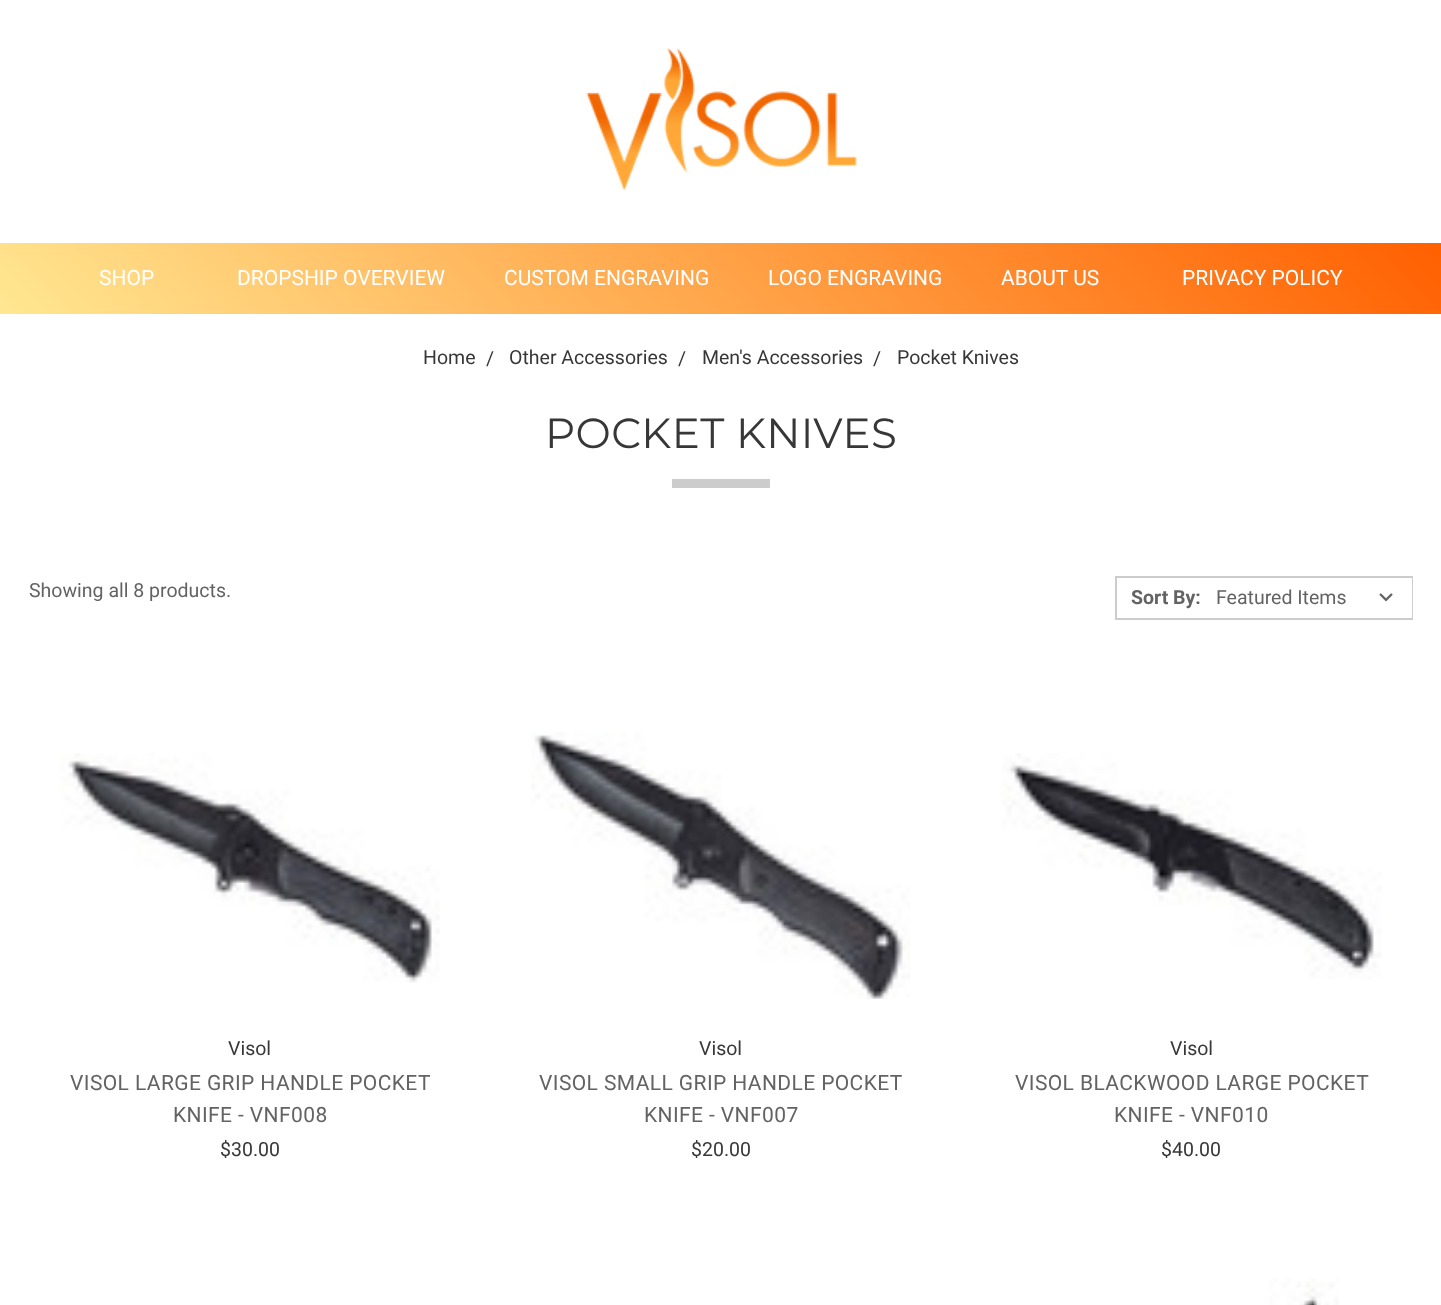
<svg xmlns="http://www.w3.org/2000/svg" width="1441" height="1305" viewBox="0 0 1441 1305">
  <style>
    .t1 { font: 21px Roboto; fill: #fff; }
    .t2 { font: 19.5px Roboto; fill: #373737; }
    .t3 { font: 100 42px Montserrat; letter-spacing: 0.4px; fill: #373737; }
    .t4 { font: 19.5px Roboto; fill: #636363; }
    .t5 { font: bold 19.5px Roboto; fill: #636363; }
    .t6 { font: 21px Roboto; letter-spacing: 0.4px; fill: #636363; }
  </style>
  <defs>
    <linearGradient id="g1" gradientUnits="userSpaceOnUse" x1="343" y1="656" x2="1099" y2="-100"><stop offset="0" stop-color="#ffe791"/><stop offset="1" stop-color="#ff6000"/></linearGradient>
  </defs>
  <rect width="100%" height="100%" fill="#fff"/>
  <image x="586" y="48" width="271" height="143" href="images/1.png"/>
  <rect x="0" y="243" width="1441" height="71" fill="url(#g1)"/>
  <text x="99" y="285" class="t1">SHOP</text>
  <text x="237" y="285" class="t1">DROPSHIP OVERVIEW</text>
  <text x="504" y="285" class="t1">CUSTOM ENGRAVING</text>
  <text x="768" y="285" class="t1">LOGO ENGRAVING</text>
  <text x="1001" y="285" class="t1">ABOUT US</text>
  <text x="1182" y="285" class="t1">PRIVACY POLICY</text>
  <text x="423" y="364" class="t2">Home</text>
  <text x="486" y="365" class="t2">/</text>
  <text x="509" y="364" class="t2">Other Accessories</text>
  <text x="678" y="365" class="t2">/</text>
  <text x="702" y="364" class="t2">Men's Accessories</text>
  <text x="873" y="365" class="t2">/</text>
  <text x="897" y="364" class="t2">Pocket Knives</text>
  <text x="545" y="448" class="t3">POCKET KNIVES</text>
  <rect x="672" y="479" width="98" height="9" fill="#ccc"/>
  <text x="29" y="597" class="t4">Showing all 8 products.</text>
  <rect x="1116" y="577" width="296" height="42" fill="none" stroke="#ccc" stroke-width="2"/>
  <text x="1131" y="604" class="t5">Sort By:</text>
  <rect x="1411" y="578" width="1" height="40" fill="#fff"/>
  <image x="1379" y="593" width="14" height="9" href="images/2.png"/>
  <text x="1216" y="604" class="t4">Featured Items</text>
  <image x="60" y="753" width="380" height="230" href="images/3.png"/>
  <text x="228" y="1055" class="t2">Visol</text>
  <text x="70" y="1090" class="t6">VISOL LARGE GRIP HANDLE POCKET</text>
  <text x="173" y="1122" class="t6">KNIFE - VNF008</text>
  <text x="220" y="1156" class="t2">$30.00</text>
  <image x="531" y="732" width="380" height="267" href="images/4.png"/>
  <text x="699" y="1055" class="t2">Visol</text>
  <text x="539" y="1090" class="t6">VISOL SMALL GRIP HANDLE POCKET</text>
  <text x="644" y="1122" class="t6">KNIFE - VNF007</text>
  <text x="691" y="1156" class="t2">$20.00</text>
  <image x="1002" y="753" width="380" height="226" href="images/5.png"/>
  <text x="1170" y="1055" class="t2">Visol</text>
  <text x="1015" y="1090" class="t6">VISOL BLACKWOOD LARGE POCKET</text>
  <text x="1114" y="1122" class="t6">KNIFE - VNF010</text>
  <text x="1161" y="1156" class="t2">$40.00</text>
  <image x="1269" y="1278" width="70" height="27" href="images/6.png"/>
</svg>
